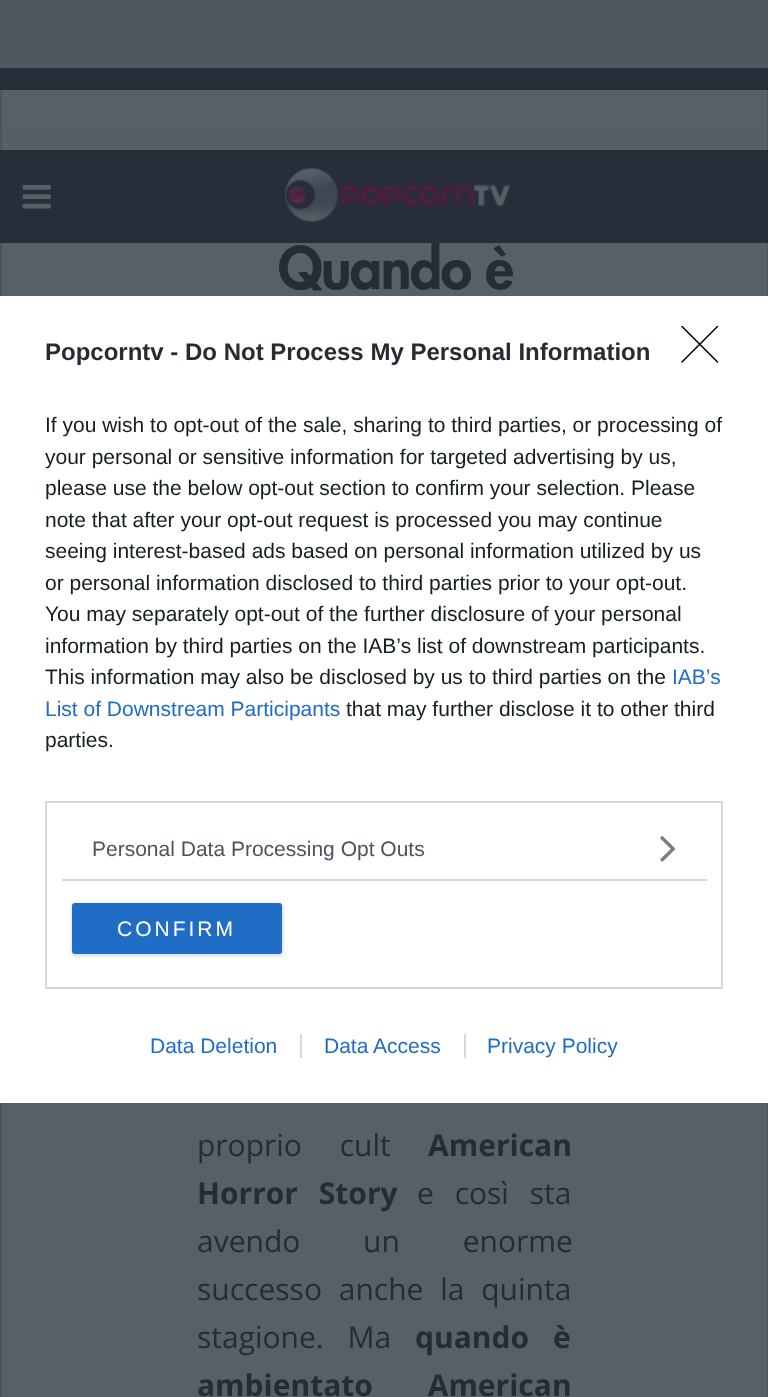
<svg xmlns="http://www.w3.org/2000/svg" width="768" height="1397" viewBox="0 0 768 1397">
  <style>
    .t1 { font: 900 57px Futura; letter-spacing: -1.5px; fill: #262c34; }
    .t2 { font: 30px Open Sans; fill: #262c34; }
    .t3 { font: bold 30px Open Sans; fill: #262c34; }
    .t4 { font: bold 24px Liberation Sans; fill: #262c34; }
    .t5 { font: 21px Liberation Sans; fill: #141e23; }
    .t6 { font: 21px Liberation Sans; fill: #206dc5; }
    .t7 { font: 21px Liberation Sans; fill: #4d545d; }
    .t8 { font: 21px Liberation Sans; letter-spacing: 3px; fill: #fff; }
  </style>
  <defs>
    <clipPath id="clip1"><rect x="681" y="326" width="38" height="37"/></clipPath>
  </defs>
  <rect width="100%" height="100%" fill="#272d39"/>
  <rect x="0" y="0" width="768" height="68" fill="#515760"/>
  <rect x="767" y="90" width="1" height="1307" fill="#4d535c"/>
  <rect x="0" y="135" width="768" height="2" fill="#545a62"/>
  <rect x="0" y="90" width="2" height="1307" fill="#4d535c"/>
  <rect x="2" y="137" width="765" height="1260" fill="#595f67"/>
  <text x="278" y="289" class="t1">Quando è</text>
  <rect x="0" y="150" width="768" height="93" fill="#272d39"/>
  <image x="22" y="184" width="29" height="25" href="images/1.png"/>
  <image x="285" y="167" width="226" height="56" href="images/2.png"/>
  <rect x="2" y="90" width="765" height="45" fill="#595f67"/>
  <text x="197" y="1156" word-spacing="30" class="t2">proprio cult</text>
  <text x="428" y="1156" class="t3">American</text>
  <text x="197" y="1204" word-spacing="13" class="t3">Horror Story</text>
  <text x="417" y="1204" word-spacing="13" class="t2">e così sta</text>
  <text x="197" y="1252" word-spacing="55" class="t2">avendo un enorme</text>
  <text x="197" y="1300" word-spacing="9" class="t2">successo anche la quinta</text>
  <text x="197" y="1348" word-spacing="16" class="t2">stagione. Ma</text>
  <text x="415" y="1348" word-spacing="16" class="t3">quando è</text>
  <text x="197" y="1396" word-spacing="47" class="t3">ambientato American</text>
  <rect x="0" y="296" width="768" height="807" fill="#fff"/>
  <g clip-path="url(#clip1)">
    <path d="M682 326.5L717.5 362M717.5 326.5L682 362" fill="none" stroke="#000" stroke-width="1.5" stroke-linecap="round" stroke-linejoin="round"/>
  </g>
  <text x="45" y="360" class="t4">Popcorntv - Do Not Process My Personal Information</text>
  <text x="45" y="432" class="t5">If you wish to opt-out of the sale, sharing to third parties, or processing of</text>
  <text x="45" y="464" class="t5">your personal or sensitive information for targeted advertising by us,</text>
  <text x="45" y="495" class="t5">please use the below opt-out section to confirm your selection. Please</text>
  <text x="45" y="527" class="t5">note that after your opt-out request is processed you may continue</text>
  <text x="45" y="558" class="t5">seeing interest-based ads based on personal information utilized by us</text>
  <text x="45" y="590" class="t5">or personal information disclosed to third parties prior to your opt-out.</text>
  <text x="45" y="621" class="t5">You may separately opt-out of the further disclosure of your personal</text>
  <text x="45" y="653" class="t5">information by third parties on the IAB’s list of downstream participants.</text>
  <text x="45" y="684" class="t5">This information may also be disclosed by us to third parties on the</text>
  <text x="672" y="684" class="t6">IAB’s</text>
  <text x="45" y="716" class="t6">List of Downstream Participants</text>
  <text x="346" y="716" class="t5">that may further disclose it to other third</text>
  <text x="45" y="747" class="t5">parties.</text>
  <rect x="46" y="802" width="676" height="186" fill="none" stroke="#d8d8d8" stroke-width="2"/>
  <rect x="62" y="879" width="645" height="2" fill="#d8d8d8"/>
  <text x="92" y="856" class="t7">Personal Data Processing Opt Outs</text>
  <image x="660" y="836" width="15" height="26" href="images/3.png"/>
  <rect x="71" y="903" width="213" height="54" rx="5" fill="#0000001a" filter="blur(1px)"/>
  <rect x="72" y="903" width="210" height="51" rx="3" fill="#206dc5"/>
  <text x="117" y="936" class="t8">CONFIRM</text>
  <text x="150" y="1053" class="t6">Data Deletion</text>
  <text x="324" y="1053" class="t6">Data Access</text>
  <rect x="300" y="1034" width="2" height="24" fill="#d8d8d8"/>
  <text x="487" y="1053" class="t6">Privacy Policy</text>
  <rect x="464" y="1034" width="2" height="24" fill="#d8d8d8"/>
</svg>
